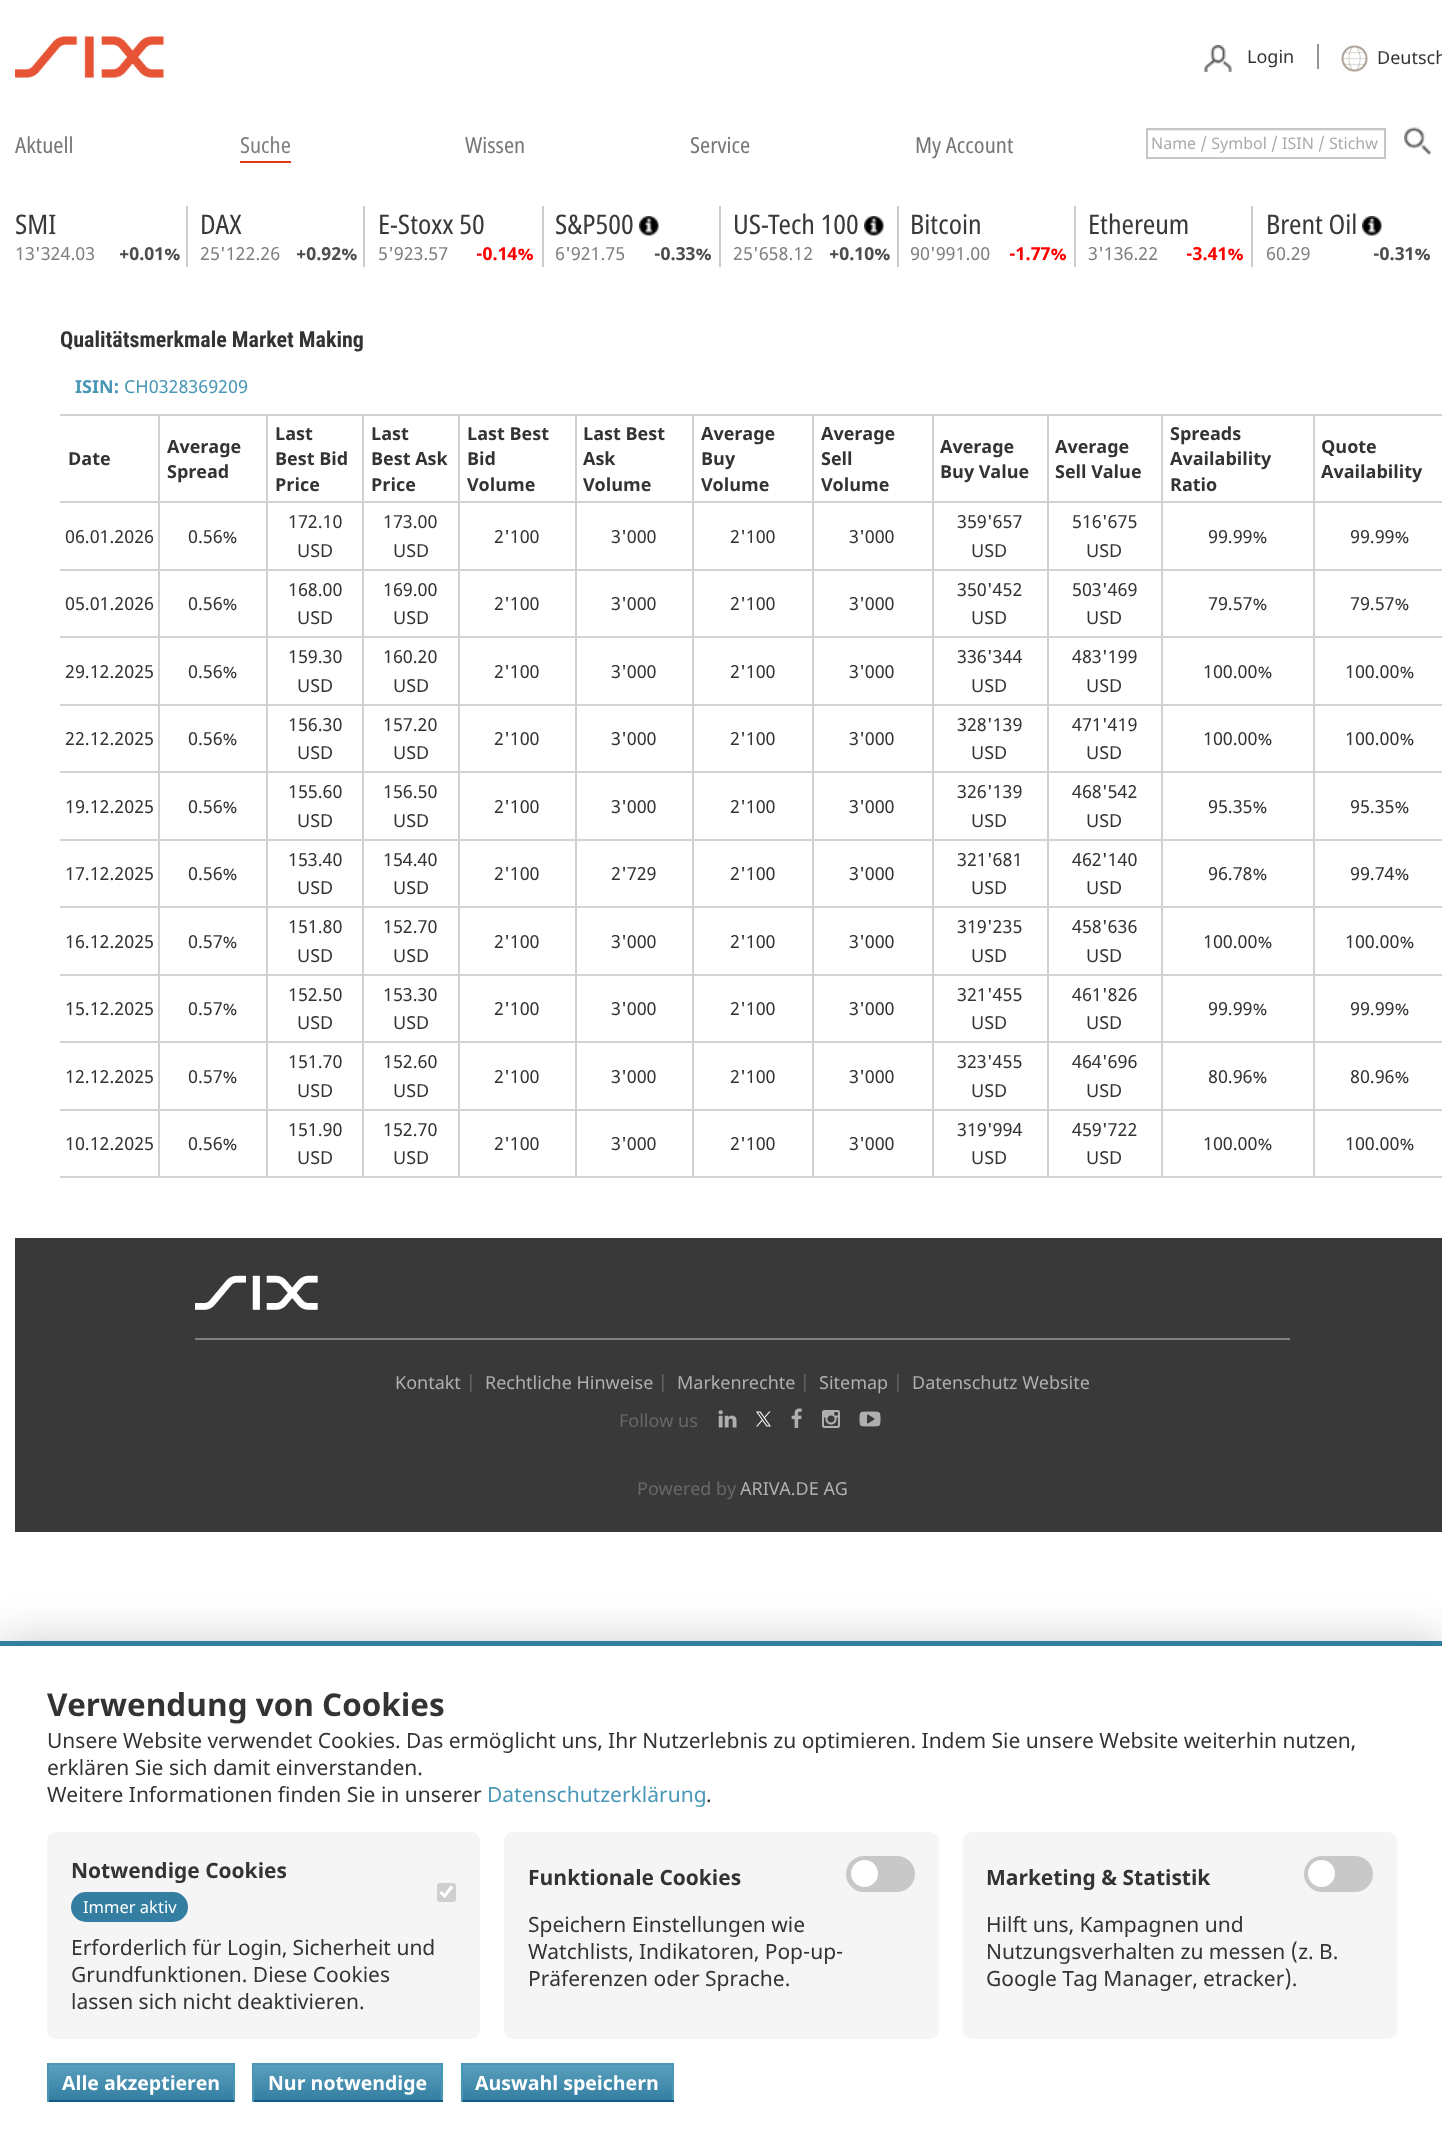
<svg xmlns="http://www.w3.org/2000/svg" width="1442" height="2137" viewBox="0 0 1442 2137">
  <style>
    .t1 { font: 18px 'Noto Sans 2'; fill: #333; }
    .t2 { font: 22px Noto Sans; fill: #777; }
    .t3 { font: 22px Noto Sans; fill: #808080; }
    .t4 { font: 16px 'Noto Sans 2'; fill: #aaa; }
    .t5 { font: 27px Noto Sans; fill: #393939; }
    .t6 { font: 18px 'Noto Sans 2'; fill: #808080; }
    .t7 { font: bold 18px Noto Sans; fill: #4e4e4e; }
    .t8 { font: bold 18px Noto Sans; fill: #fe0000; }
    .t9 { font: bold 22px Roboto Condensed; fill: #333; }
    .t10 { font: bold 18px Noto Sans; fill: #4997b7; }
    .t11 { font: 18px 'Noto Sans 2'; fill: #4997b7; }
    .t12 { font: bold 18px Noto Sans; fill: #333; }
    .t13 { font: bold 31.5px Noto Sans; fill: #333; }
    .t14 { font: 21px 'Noto Sans 2'; fill: #333; }
    .t15 { font: 21px 'Noto Sans 2'; fill: #4997b7; }
    .t16 { font: bold 21px Noto Sans; fill: #333; }
    .t17 { font: 16.5px 'Noto Sans 2'; fill: #fff; }
    .t18 { font: bold 19.5px Noto Sans; fill: #fff; }
    .t19 { font: 18px 'Noto Sans 2'; fill: #b0b0b0; }
    .t20 { font: 18px 'Noto Sans 2'; fill: #68686a; }
  </style>
  <defs>
    <linearGradient id="g1" gradientUnits="userSpaceOnUse" x1="140" y1="2064" x2="140" y2="2100"><stop offset="0" stop-color="#5ba1be"/><stop offset="1" stop-color="#347ea2"/></linearGradient>
    <linearGradient id="g2" gradientUnits="userSpaceOnUse" x1="347" y1="2064" x2="347" y2="2100"><stop offset="0" stop-color="#5ba1be"/><stop offset="1" stop-color="#347ea2"/></linearGradient>
    <linearGradient id="g3" gradientUnits="userSpaceOnUse" x1="567" y1="2064" x2="567" y2="2100"><stop offset="0" stop-color="#5ba1be"/><stop offset="1" stop-color="#347ea2"/></linearGradient>
  </defs>
  <rect width="100%" height="100%" fill="#fff"/>
  <image x="15" y="36" width="150" height="42" href="images/1.png"/>
  <image x="1204" y="45" width="28" height="27" href="images/2.png"/>
  <text x="1247" y="63" class="t1">Login</text>
  <rect x="1317" y="44" width="2" height="25" fill="#949598"/>
  <image x="1341" y="45" width="27" height="27" href="images/3.png"/>
  <text x="1377" y="64" class="t1">Deutsch</text>
  <text x="15" y="153" class="t2">Aktuell</text>
  <text x="240" y="153" class="t3">Suche</text>
  <rect x="240" y="161" width="51" height="2" fill="#de3919"/>
  <text x="465" y="153" class="t2">Wissen</text>
  <text x="690" y="153" class="t2">Service</text>
  <text x="915" y="153" class="t2">My Account</text>
  <rect x="1148" y="130" width="237" height="1" fill="#ececec"/>
  <rect x="1147" y="129" width="238" height="29" fill="none" stroke="#c6c6c8" stroke-width="2"/>
  <text x="1151" y="149" class="t4">Name / Symbol / ISIN / Stichw</text>
  <image x="1404" y="127" width="27" height="28" href="images/4.png"/>
  <rect x="186" y="206" width="2" height="61" fill="#ccc"/>
  <text x="15" y="234" class="t5">SMI</text>
  <text x="15" y="260" class="t6">13'324.03</text>
  <text x="119" y="260" class="t7">+0.01%</text>
  <rect x="363" y="206" width="2" height="61" fill="#ccc"/>
  <text x="200" y="234" class="t5">DAX</text>
  <text x="200" y="260" class="t6">25'122.26</text>
  <text x="296" y="260" class="t7">+0.92%</text>
  <rect x="542" y="206" width="2" height="61" fill="#ccc"/>
  <text x="378" y="234" class="t5">E-Stoxx 50</text>
  <text x="378" y="260" class="t6">5'923.57</text>
  <text x="476" y="260" class="t8">-0.14%</text>
  <rect x="719" y="206" width="2" height="61" fill="#ccc"/>
  <text x="555" y="234" class="t5">S&amp;P500</text>
  <image x="639" y="216" width="20" height="20" href="images/5.png"/>
  <text x="555" y="260" class="t6">6'921.75</text>
  <text x="654" y="260" class="t7">-0.33%</text>
  <rect x="897" y="206" width="2" height="61" fill="#ccc"/>
  <text x="733" y="234" class="t5">US-Tech 100</text>
  <image x="864" y="216" width="20" height="20" href="images/5.png"/>
  <text x="733" y="260" class="t6">25'658.12</text>
  <text x="829" y="260" class="t7">+0.10%</text>
  <rect x="1074" y="206" width="2" height="61" fill="#ccc"/>
  <text x="910" y="234" class="t5">Bitcoin</text>
  <text x="910" y="260" class="t6">90'991.00</text>
  <text x="1009" y="260" class="t8">-1.77%</text>
  <rect x="1251" y="206" width="2" height="61" fill="#ccc"/>
  <text x="1088" y="234" class="t5">Ethereum</text>
  <text x="1088" y="260" class="t6">3'136.22</text>
  <text x="1186" y="260" class="t8">-3.41%</text>
  <text x="1266" y="234" class="t5">Brent Oil</text>
  <image x="1362" y="216" width="20" height="20" href="images/6.png"/>
  <text x="1266" y="260" class="t6">60.29</text>
  <text x="1373" y="260" class="t7">-0.31%</text>
  <text x="60" y="347" class="t9">Qualitätsmerkmale Market Making</text>
  <text x="75" y="393" class="t10">ISIN:</text>
  <text x="124" y="393" class="t11">CH0328369209</text>
  <rect x="1313" y="414" width="129" height="2" fill="#d1d1d3"/>
  <rect x="1313" y="1176" width="129" height="2" fill="#d3d3d3"/>
  <rect x="1313" y="1109" width="2" height="69" fill="#d1d1d3"/>
  <rect x="1313" y="1109" width="129" height="2" fill="#d3d3d3"/>
  <rect x="1313" y="1041" width="2" height="69" fill="#d1d1d3"/>
  <rect x="1313" y="1041" width="129" height="2" fill="#d3d3d3"/>
  <rect x="1313" y="974" width="2" height="69" fill="#d1d1d3"/>
  <rect x="1313" y="974" width="129" height="2" fill="#d3d3d3"/>
  <rect x="1313" y="906" width="2" height="69" fill="#d1d1d3"/>
  <rect x="1313" y="906" width="129" height="2" fill="#d3d3d3"/>
  <rect x="1313" y="839" width="2" height="69" fill="#d1d1d3"/>
  <rect x="1313" y="839" width="129" height="2" fill="#d3d3d3"/>
  <rect x="1313" y="771" width="2" height="69" fill="#d1d1d3"/>
  <rect x="1313" y="771" width="129" height="2" fill="#d3d3d3"/>
  <rect x="1313" y="704" width="2" height="69" fill="#d1d1d3"/>
  <rect x="1313" y="704" width="129" height="2" fill="#d3d3d3"/>
  <rect x="1313" y="636" width="2" height="69" fill="#d1d1d3"/>
  <rect x="1313" y="636" width="129" height="2" fill="#d3d3d3"/>
  <rect x="1313" y="569" width="2" height="69" fill="#d1d1d3"/>
  <rect x="1313" y="569" width="129" height="2" fill="#d3d3d3"/>
  <rect x="1313" y="501" width="2" height="69" fill="#d1d1d3"/>
  <rect x="1313" y="501" width="129" height="2" fill="#d1d1d3"/>
  <rect x="1313" y="414" width="2" height="89" fill="#d1d1d3"/>
  <rect x="1161" y="414" width="153" height="2" fill="#d1d1d3"/>
  <rect x="1161" y="1176" width="153" height="2" fill="#d3d3d3"/>
  <rect x="1161" y="1109" width="2" height="69" fill="#d1d1d3"/>
  <rect x="1161" y="1109" width="153" height="2" fill="#d3d3d3"/>
  <rect x="1161" y="1041" width="2" height="69" fill="#d1d1d3"/>
  <rect x="1161" y="1041" width="153" height="2" fill="#d3d3d3"/>
  <rect x="1161" y="974" width="2" height="69" fill="#d1d1d3"/>
  <rect x="1161" y="974" width="153" height="2" fill="#d3d3d3"/>
  <rect x="1161" y="906" width="2" height="69" fill="#d1d1d3"/>
  <rect x="1161" y="906" width="153" height="2" fill="#d3d3d3"/>
  <rect x="1161" y="839" width="2" height="69" fill="#d1d1d3"/>
  <rect x="1161" y="839" width="153" height="2" fill="#d3d3d3"/>
  <rect x="1161" y="771" width="2" height="69" fill="#d1d1d3"/>
  <rect x="1161" y="771" width="153" height="2" fill="#d3d3d3"/>
  <rect x="1161" y="704" width="2" height="69" fill="#d1d1d3"/>
  <rect x="1161" y="704" width="153" height="2" fill="#d3d3d3"/>
  <rect x="1161" y="636" width="2" height="69" fill="#d1d1d3"/>
  <rect x="1161" y="636" width="153" height="2" fill="#d3d3d3"/>
  <rect x="1161" y="569" width="2" height="69" fill="#d1d1d3"/>
  <rect x="1161" y="569" width="153" height="2" fill="#d3d3d3"/>
  <rect x="1161" y="501" width="2" height="69" fill="#d1d1d3"/>
  <rect x="1161" y="501" width="153" height="2" fill="#d1d1d3"/>
  <rect x="1161" y="414" width="2" height="89" fill="#d1d1d3"/>
  <rect x="1047" y="414" width="116" height="2" fill="#d1d1d3"/>
  <rect x="1047" y="1176" width="116" height="2" fill="#d3d3d3"/>
  <rect x="1047" y="1109" width="2" height="69" fill="#d1d1d3"/>
  <rect x="1047" y="1109" width="116" height="2" fill="#d3d3d3"/>
  <rect x="1047" y="1041" width="2" height="69" fill="#d1d1d3"/>
  <rect x="1047" y="1041" width="116" height="2" fill="#d3d3d3"/>
  <rect x="1047" y="974" width="2" height="69" fill="#d1d1d3"/>
  <rect x="1047" y="974" width="116" height="2" fill="#d3d3d3"/>
  <rect x="1047" y="906" width="2" height="69" fill="#d1d1d3"/>
  <rect x="1047" y="906" width="116" height="2" fill="#d3d3d3"/>
  <rect x="1047" y="839" width="2" height="69" fill="#d1d1d3"/>
  <rect x="1047" y="839" width="116" height="2" fill="#d3d3d3"/>
  <rect x="1047" y="771" width="2" height="69" fill="#d1d1d3"/>
  <rect x="1047" y="771" width="116" height="2" fill="#d3d3d3"/>
  <rect x="1047" y="704" width="2" height="69" fill="#d1d1d3"/>
  <rect x="1047" y="704" width="116" height="2" fill="#d3d3d3"/>
  <rect x="1047" y="636" width="2" height="69" fill="#d1d1d3"/>
  <rect x="1047" y="636" width="116" height="2" fill="#d3d3d3"/>
  <rect x="1047" y="569" width="2" height="69" fill="#d1d1d3"/>
  <rect x="1047" y="569" width="116" height="2" fill="#d3d3d3"/>
  <rect x="1047" y="501" width="2" height="69" fill="#d1d1d3"/>
  <rect x="1047" y="501" width="116" height="2" fill="#d1d1d3"/>
  <rect x="1047" y="414" width="2" height="89" fill="#d1d1d3"/>
  <rect x="932" y="414" width="117" height="2" fill="#d1d1d3"/>
  <rect x="932" y="1176" width="117" height="2" fill="#d3d3d3"/>
  <rect x="932" y="1109" width="2" height="69" fill="#d1d1d3"/>
  <rect x="932" y="1109" width="117" height="2" fill="#d3d3d3"/>
  <rect x="932" y="1041" width="2" height="69" fill="#d1d1d3"/>
  <rect x="932" y="1041" width="117" height="2" fill="#d3d3d3"/>
  <rect x="932" y="974" width="2" height="69" fill="#d1d1d3"/>
  <rect x="932" y="974" width="117" height="2" fill="#d3d3d3"/>
  <rect x="932" y="906" width="2" height="69" fill="#d1d1d3"/>
  <rect x="932" y="906" width="117" height="2" fill="#d3d3d3"/>
  <rect x="932" y="839" width="2" height="69" fill="#d1d1d3"/>
  <rect x="932" y="839" width="117" height="2" fill="#d3d3d3"/>
  <rect x="932" y="771" width="2" height="69" fill="#d1d1d3"/>
  <rect x="932" y="771" width="117" height="2" fill="#d3d3d3"/>
  <rect x="932" y="704" width="2" height="69" fill="#d1d1d3"/>
  <rect x="932" y="704" width="117" height="2" fill="#d3d3d3"/>
  <rect x="932" y="636" width="2" height="69" fill="#d1d1d3"/>
  <rect x="932" y="636" width="117" height="2" fill="#d3d3d3"/>
  <rect x="932" y="569" width="2" height="69" fill="#d1d1d3"/>
  <rect x="932" y="569" width="117" height="2" fill="#d3d3d3"/>
  <rect x="932" y="501" width="2" height="69" fill="#d1d1d3"/>
  <rect x="932" y="501" width="117" height="2" fill="#d1d1d3"/>
  <rect x="932" y="414" width="2" height="89" fill="#d1d1d3"/>
  <rect x="812" y="414" width="121" height="2" fill="#d1d1d3"/>
  <rect x="812" y="1176" width="121" height="2" fill="#d3d3d3"/>
  <rect x="812" y="1109" width="2" height="69" fill="#d1d1d3"/>
  <rect x="812" y="1109" width="121" height="2" fill="#d3d3d3"/>
  <rect x="812" y="1041" width="2" height="69" fill="#d1d1d3"/>
  <rect x="812" y="1041" width="121" height="2" fill="#d3d3d3"/>
  <rect x="812" y="974" width="2" height="69" fill="#d1d1d3"/>
  <rect x="812" y="974" width="121" height="2" fill="#d3d3d3"/>
  <rect x="812" y="906" width="2" height="69" fill="#d1d1d3"/>
  <rect x="812" y="906" width="121" height="2" fill="#d3d3d3"/>
  <rect x="812" y="839" width="2" height="69" fill="#d1d1d3"/>
  <rect x="812" y="839" width="121" height="2" fill="#d3d3d3"/>
  <rect x="812" y="771" width="2" height="69" fill="#d1d1d3"/>
  <rect x="812" y="771" width="121" height="2" fill="#d3d3d3"/>
  <rect x="812" y="704" width="2" height="69" fill="#d1d1d3"/>
  <rect x="812" y="704" width="121" height="2" fill="#d3d3d3"/>
  <rect x="812" y="636" width="2" height="69" fill="#d1d1d3"/>
  <rect x="812" y="636" width="121" height="2" fill="#d3d3d3"/>
  <rect x="812" y="569" width="2" height="69" fill="#d1d1d3"/>
  <rect x="812" y="569" width="121" height="2" fill="#d3d3d3"/>
  <rect x="812" y="501" width="2" height="69" fill="#d1d1d3"/>
  <rect x="812" y="501" width="121" height="2" fill="#d1d1d3"/>
  <rect x="812" y="414" width="2" height="89" fill="#d1d1d3"/>
  <rect x="692" y="414" width="121" height="2" fill="#d1d1d3"/>
  <rect x="692" y="1176" width="121" height="2" fill="#d3d3d3"/>
  <rect x="692" y="1109" width="2" height="69" fill="#d1d1d3"/>
  <rect x="692" y="1109" width="121" height="2" fill="#d3d3d3"/>
  <rect x="692" y="1041" width="2" height="69" fill="#d1d1d3"/>
  <rect x="692" y="1041" width="121" height="2" fill="#d3d3d3"/>
  <rect x="692" y="974" width="2" height="69" fill="#d1d1d3"/>
  <rect x="692" y="974" width="121" height="2" fill="#d3d3d3"/>
  <rect x="692" y="906" width="2" height="69" fill="#d1d1d3"/>
  <rect x="692" y="906" width="121" height="2" fill="#d3d3d3"/>
  <rect x="692" y="839" width="2" height="69" fill="#d1d1d3"/>
  <rect x="692" y="839" width="121" height="2" fill="#d3d3d3"/>
  <rect x="692" y="771" width="2" height="69" fill="#d1d1d3"/>
  <rect x="692" y="771" width="121" height="2" fill="#d3d3d3"/>
  <rect x="692" y="704" width="2" height="69" fill="#d1d1d3"/>
  <rect x="692" y="704" width="121" height="2" fill="#d3d3d3"/>
  <rect x="692" y="636" width="2" height="69" fill="#d1d1d3"/>
  <rect x="692" y="636" width="121" height="2" fill="#d3d3d3"/>
  <rect x="692" y="569" width="2" height="69" fill="#d1d1d3"/>
  <rect x="692" y="569" width="121" height="2" fill="#d3d3d3"/>
  <rect x="692" y="501" width="2" height="69" fill="#d1d1d3"/>
  <rect x="692" y="501" width="121" height="2" fill="#d1d1d3"/>
  <rect x="692" y="414" width="2" height="89" fill="#d1d1d3"/>
  <rect x="575" y="414" width="118" height="2" fill="#d1d1d3"/>
  <rect x="575" y="1176" width="118" height="2" fill="#d3d3d3"/>
  <rect x="575" y="1109" width="2" height="69" fill="#d1d1d3"/>
  <rect x="575" y="1109" width="118" height="2" fill="#d3d3d3"/>
  <rect x="575" y="1041" width="2" height="69" fill="#d1d1d3"/>
  <rect x="575" y="1041" width="118" height="2" fill="#d3d3d3"/>
  <rect x="575" y="974" width="2" height="69" fill="#d1d1d3"/>
  <rect x="575" y="974" width="118" height="2" fill="#d3d3d3"/>
  <rect x="575" y="906" width="2" height="69" fill="#d1d1d3"/>
  <rect x="575" y="906" width="118" height="2" fill="#d3d3d3"/>
  <rect x="575" y="839" width="2" height="69" fill="#d1d1d3"/>
  <rect x="575" y="839" width="118" height="2" fill="#d3d3d3"/>
  <rect x="575" y="771" width="2" height="69" fill="#d1d1d3"/>
  <rect x="575" y="771" width="118" height="2" fill="#d3d3d3"/>
  <rect x="575" y="704" width="2" height="69" fill="#d1d1d3"/>
  <rect x="575" y="704" width="118" height="2" fill="#d3d3d3"/>
  <rect x="575" y="636" width="2" height="69" fill="#d1d1d3"/>
  <rect x="575" y="636" width="118" height="2" fill="#d3d3d3"/>
  <rect x="575" y="569" width="2" height="69" fill="#d1d1d3"/>
  <rect x="575" y="569" width="118" height="2" fill="#d3d3d3"/>
  <rect x="575" y="501" width="2" height="69" fill="#d1d1d3"/>
  <rect x="575" y="501" width="118" height="2" fill="#d1d1d3"/>
  <rect x="575" y="414" width="2" height="89" fill="#d1d1d3"/>
  <rect x="458" y="414" width="118" height="2" fill="#d1d1d3"/>
  <rect x="458" y="1176" width="118" height="2" fill="#d3d3d3"/>
  <rect x="458" y="1109" width="2" height="69" fill="#d1d1d3"/>
  <rect x="458" y="1109" width="118" height="2" fill="#d3d3d3"/>
  <rect x="458" y="1041" width="2" height="69" fill="#d1d1d3"/>
  <rect x="458" y="1041" width="118" height="2" fill="#d3d3d3"/>
  <rect x="458" y="974" width="2" height="69" fill="#d1d1d3"/>
  <rect x="458" y="974" width="118" height="2" fill="#d3d3d3"/>
  <rect x="458" y="906" width="2" height="69" fill="#d1d1d3"/>
  <rect x="458" y="906" width="118" height="2" fill="#d3d3d3"/>
  <rect x="458" y="839" width="2" height="69" fill="#d1d1d3"/>
  <rect x="458" y="839" width="118" height="2" fill="#d3d3d3"/>
  <rect x="458" y="771" width="2" height="69" fill="#d1d1d3"/>
  <rect x="458" y="771" width="118" height="2" fill="#d3d3d3"/>
  <rect x="458" y="704" width="2" height="69" fill="#d1d1d3"/>
  <rect x="458" y="704" width="118" height="2" fill="#d3d3d3"/>
  <rect x="458" y="636" width="2" height="69" fill="#d1d1d3"/>
  <rect x="458" y="636" width="118" height="2" fill="#d3d3d3"/>
  <rect x="458" y="569" width="2" height="69" fill="#d1d1d3"/>
  <rect x="458" y="569" width="118" height="2" fill="#d3d3d3"/>
  <rect x="458" y="501" width="2" height="69" fill="#d1d1d3"/>
  <rect x="458" y="501" width="118" height="2" fill="#d1d1d3"/>
  <rect x="458" y="414" width="2" height="89" fill="#d1d1d3"/>
  <rect x="362" y="414" width="97" height="2" fill="#d1d1d3"/>
  <rect x="362" y="1176" width="97" height="2" fill="#d3d3d3"/>
  <rect x="362" y="1109" width="2" height="69" fill="#d1d1d3"/>
  <rect x="362" y="1109" width="97" height="2" fill="#d3d3d3"/>
  <rect x="362" y="1041" width="2" height="69" fill="#d1d1d3"/>
  <rect x="362" y="1041" width="97" height="2" fill="#d3d3d3"/>
  <rect x="362" y="974" width="2" height="69" fill="#d1d1d3"/>
  <rect x="362" y="974" width="97" height="2" fill="#d3d3d3"/>
  <rect x="362" y="906" width="2" height="69" fill="#d1d1d3"/>
  <rect x="362" y="906" width="97" height="2" fill="#d3d3d3"/>
  <rect x="362" y="839" width="2" height="69" fill="#d1d1d3"/>
  <rect x="362" y="839" width="97" height="2" fill="#d3d3d3"/>
  <rect x="362" y="771" width="2" height="69" fill="#d1d1d3"/>
  <rect x="362" y="771" width="97" height="2" fill="#d3d3d3"/>
  <rect x="362" y="704" width="2" height="69" fill="#d1d1d3"/>
  <rect x="362" y="704" width="97" height="2" fill="#d3d3d3"/>
  <rect x="362" y="636" width="2" height="69" fill="#d1d1d3"/>
  <rect x="362" y="636" width="97" height="2" fill="#d3d3d3"/>
  <rect x="362" y="569" width="2" height="69" fill="#d1d1d3"/>
  <rect x="362" y="569" width="97" height="2" fill="#d3d3d3"/>
  <rect x="362" y="501" width="2" height="69" fill="#d1d1d3"/>
  <rect x="362" y="501" width="97" height="2" fill="#d1d1d3"/>
  <rect x="362" y="414" width="2" height="89" fill="#d1d1d3"/>
  <rect x="266" y="414" width="97" height="2" fill="#d1d1d3"/>
  <rect x="266" y="1176" width="97" height="2" fill="#d3d3d3"/>
  <rect x="266" y="1109" width="2" height="69" fill="#d1d1d3"/>
  <rect x="266" y="1109" width="97" height="2" fill="#d3d3d3"/>
  <rect x="266" y="1041" width="2" height="69" fill="#d1d1d3"/>
  <rect x="266" y="1041" width="97" height="2" fill="#d3d3d3"/>
  <rect x="266" y="974" width="2" height="69" fill="#d1d1d3"/>
  <rect x="266" y="974" width="97" height="2" fill="#d3d3d3"/>
  <rect x="266" y="906" width="2" height="69" fill="#d1d1d3"/>
  <rect x="266" y="906" width="97" height="2" fill="#d3d3d3"/>
  <rect x="266" y="839" width="2" height="69" fill="#d1d1d3"/>
  <rect x="266" y="839" width="97" height="2" fill="#d3d3d3"/>
  <rect x="266" y="771" width="2" height="69" fill="#d1d1d3"/>
  <rect x="266" y="771" width="97" height="2" fill="#d3d3d3"/>
  <rect x="266" y="704" width="2" height="69" fill="#d1d1d3"/>
  <rect x="266" y="704" width="97" height="2" fill="#d3d3d3"/>
  <rect x="266" y="636" width="2" height="69" fill="#d1d1d3"/>
  <rect x="266" y="636" width="97" height="2" fill="#d3d3d3"/>
  <rect x="266" y="569" width="2" height="69" fill="#d1d1d3"/>
  <rect x="266" y="569" width="97" height="2" fill="#d3d3d3"/>
  <rect x="266" y="501" width="2" height="69" fill="#d1d1d3"/>
  <rect x="266" y="501" width="97" height="2" fill="#d1d1d3"/>
  <rect x="266" y="414" width="2" height="89" fill="#d1d1d3"/>
  <rect x="158" y="414" width="109" height="2" fill="#d1d1d3"/>
  <rect x="158" y="1176" width="109" height="2" fill="#d3d3d3"/>
  <rect x="158" y="1109" width="2" height="69" fill="#d1d1d3"/>
  <rect x="158" y="1109" width="109" height="2" fill="#d3d3d3"/>
  <rect x="158" y="1041" width="2" height="69" fill="#d1d1d3"/>
  <rect x="158" y="1041" width="109" height="2" fill="#d3d3d3"/>
  <rect x="158" y="974" width="2" height="69" fill="#d1d1d3"/>
  <rect x="158" y="974" width="109" height="2" fill="#d3d3d3"/>
  <rect x="158" y="906" width="2" height="69" fill="#d1d1d3"/>
  <rect x="158" y="906" width="109" height="2" fill="#d3d3d3"/>
  <rect x="158" y="839" width="2" height="69" fill="#d1d1d3"/>
  <rect x="158" y="839" width="109" height="2" fill="#d3d3d3"/>
  <rect x="158" y="771" width="2" height="69" fill="#d1d1d3"/>
  <rect x="158" y="771" width="109" height="2" fill="#d3d3d3"/>
  <rect x="158" y="704" width="2" height="69" fill="#d1d1d3"/>
  <rect x="158" y="704" width="109" height="2" fill="#d3d3d3"/>
  <rect x="158" y="636" width="2" height="69" fill="#d1d1d3"/>
  <rect x="158" y="636" width="109" height="2" fill="#d3d3d3"/>
  <rect x="158" y="569" width="2" height="69" fill="#d1d1d3"/>
  <rect x="158" y="569" width="109" height="2" fill="#d3d3d3"/>
  <rect x="158" y="501" width="2" height="69" fill="#d1d1d3"/>
  <rect x="158" y="501" width="109" height="2" fill="#d1d1d3"/>
  <rect x="158" y="414" width="2" height="89" fill="#d1d1d3"/>
  <rect x="60" y="414" width="99" height="2" fill="#d1d1d3"/>
  <rect x="60" y="501" width="99" height="2" fill="#d1d1d3"/>
  <text x="68" y="465" class="t12">Date</text>
  <text x="167" y="453" class="t12">Average</text>
  <text x="167" y="478" class="t12">Spread</text>
  <text x="275" y="440" class="t12">Last</text>
  <text x="275" y="465" class="t12">Best Bid</text>
  <text x="275" y="491" class="t12">Price</text>
  <text x="371" y="440" class="t12">Last</text>
  <text x="371" y="465" class="t12">Best Ask</text>
  <text x="371" y="491" class="t12">Price</text>
  <text x="467" y="440" class="t12">Last Best</text>
  <text x="467" y="465" class="t12">Bid</text>
  <text x="467" y="491" class="t12">Volume</text>
  <text x="583" y="440" class="t12">Last Best</text>
  <text x="583" y="465" class="t12">Ask</text>
  <text x="583" y="491" class="t12">Volume</text>
  <text x="701" y="440" class="t12">Average</text>
  <text x="701" y="465" class="t12">Buy</text>
  <text x="701" y="491" class="t12">Volume</text>
  <text x="821" y="440" class="t12">Average</text>
  <text x="821" y="465" class="t12">Sell</text>
  <text x="821" y="491" class="t12">Volume</text>
  <text x="940" y="453" class="t12">Average</text>
  <text x="940" y="478" class="t12">Buy Value</text>
  <text x="1055" y="453" class="t12">Average</text>
  <text x="1055" y="478" class="t12">Sell Value</text>
  <text x="1170" y="440" class="t12">Spreads</text>
  <text x="1170" y="465" class="t12">Availability</text>
  <text x="1170" y="491" class="t12">Ratio</text>
  <text x="1321" y="453" class="t12">Quote</text>
  <text x="1321" y="478" class="t12">Availability</text>
  <rect x="60" y="569" width="99" height="2" fill="#d3d3d3"/>
  <text x="65" y="543" class="t1">06.01.2026</text>
  <text x="188" y="543" class="t1">0.56%</text>
  <text x="288" y="528" class="t1">172.10</text>
  <text x="297" y="557" class="t1">USD</text>
  <text x="383" y="528" class="t1">173.00</text>
  <text x="393" y="557" class="t1">USD</text>
  <text x="494" y="543" class="t1">2'100</text>
  <text x="611" y="543" class="t1">3'000</text>
  <text x="730" y="543" class="t1">2'100</text>
  <text x="849" y="543" class="t1">3'000</text>
  <text x="957" y="528" class="t1">359'657</text>
  <text x="971" y="557" class="t1">USD</text>
  <text x="1072" y="528" class="t1">516'675</text>
  <text x="1086" y="557" class="t1">USD</text>
  <text x="1208" y="543" class="t1">99.99%</text>
  <text x="1350" y="543" class="t1">99.99%</text>
  <rect x="60" y="636" width="99" height="2" fill="#d3d3d3"/>
  <text x="65" y="610" class="t1">05.01.2026</text>
  <text x="188" y="610" class="t1">0.56%</text>
  <text x="288" y="596" class="t1">168.00</text>
  <text x="297" y="624" class="t1">USD</text>
  <text x="383" y="596" class="t1">169.00</text>
  <text x="393" y="624" class="t1">USD</text>
  <text x="494" y="610" class="t1">2'100</text>
  <text x="611" y="610" class="t1">3'000</text>
  <text x="730" y="610" class="t1">2'100</text>
  <text x="849" y="610" class="t1">3'000</text>
  <text x="957" y="596" class="t1">350'452</text>
  <text x="971" y="624" class="t1">USD</text>
  <text x="1072" y="596" class="t1">503'469</text>
  <text x="1086" y="624" class="t1">USD</text>
  <text x="1208" y="610" class="t1">79.57%</text>
  <text x="1350" y="610" class="t1">79.57%</text>
  <rect x="60" y="704" width="99" height="2" fill="#d3d3d3"/>
  <text x="65" y="678" class="t1">29.12.2025</text>
  <text x="188" y="678" class="t1">0.56%</text>
  <text x="288" y="663" class="t1">159.30</text>
  <text x="297" y="692" class="t1">USD</text>
  <text x="383" y="663" class="t1">160.20</text>
  <text x="393" y="692" class="t1">USD</text>
  <text x="494" y="678" class="t1">2'100</text>
  <text x="611" y="678" class="t1">3'000</text>
  <text x="730" y="678" class="t1">2'100</text>
  <text x="849" y="678" class="t1">3'000</text>
  <text x="957" y="663" class="t1">336'344</text>
  <text x="971" y="692" class="t1">USD</text>
  <text x="1072" y="663" class="t1">483'199</text>
  <text x="1086" y="692" class="t1">USD</text>
  <text x="1203" y="678" class="t1">100.00%</text>
  <text x="1345" y="678" class="t1">100.00%</text>
  <rect x="60" y="771" width="99" height="2" fill="#d3d3d3"/>
  <text x="65" y="745" class="t1">22.12.2025</text>
  <text x="188" y="745" class="t1">0.56%</text>
  <text x="288" y="731" class="t1">156.30</text>
  <text x="297" y="759" class="t1">USD</text>
  <text x="383" y="731" class="t1">157.20</text>
  <text x="393" y="759" class="t1">USD</text>
  <text x="494" y="745" class="t1">2'100</text>
  <text x="611" y="745" class="t1">3'000</text>
  <text x="730" y="745" class="t1">2'100</text>
  <text x="849" y="745" class="t1">3'000</text>
  <text x="957" y="731" class="t1">328'139</text>
  <text x="971" y="759" class="t1">USD</text>
  <text x="1072" y="731" class="t1">471'419</text>
  <text x="1086" y="759" class="t1">USD</text>
  <text x="1203" y="745" class="t1">100.00%</text>
  <text x="1345" y="745" class="t1">100.00%</text>
  <rect x="60" y="839" width="99" height="2" fill="#d3d3d3"/>
  <text x="65" y="813" class="t1">19.12.2025</text>
  <text x="188" y="813" class="t1">0.56%</text>
  <text x="288" y="798" class="t1">155.60</text>
  <text x="297" y="827" class="t1">USD</text>
  <text x="383" y="798" class="t1">156.50</text>
  <text x="393" y="827" class="t1">USD</text>
  <text x="494" y="813" class="t1">2'100</text>
  <text x="611" y="813" class="t1">3'000</text>
  <text x="730" y="813" class="t1">2'100</text>
  <text x="849" y="813" class="t1">3'000</text>
  <text x="957" y="798" class="t1">326'139</text>
  <text x="971" y="827" class="t1">USD</text>
  <text x="1072" y="798" class="t1">468'542</text>
  <text x="1086" y="827" class="t1">USD</text>
  <text x="1208" y="813" class="t1">95.35%</text>
  <text x="1350" y="813" class="t1">95.35%</text>
  <rect x="60" y="906" width="99" height="2" fill="#d3d3d3"/>
  <text x="65" y="880" class="t1">17.12.2025</text>
  <text x="188" y="880" class="t1">0.56%</text>
  <text x="288" y="866" class="t1">153.40</text>
  <text x="297" y="894" class="t1">USD</text>
  <text x="383" y="866" class="t1">154.40</text>
  <text x="393" y="894" class="t1">USD</text>
  <text x="494" y="880" class="t1">2'100</text>
  <text x="611" y="880" class="t1">2'729</text>
  <text x="730" y="880" class="t1">2'100</text>
  <text x="849" y="880" class="t1">3'000</text>
  <text x="957" y="866" class="t1">321'681</text>
  <text x="971" y="894" class="t1">USD</text>
  <text x="1072" y="866" class="t1">462'140</text>
  <text x="1086" y="894" class="t1">USD</text>
  <text x="1208" y="880" class="t1">96.78%</text>
  <text x="1350" y="880" class="t1">99.74%</text>
  <rect x="60" y="974" width="99" height="2" fill="#d3d3d3"/>
  <text x="65" y="948" class="t1">16.12.2025</text>
  <text x="188" y="948" class="t1">0.57%</text>
  <text x="288" y="933" class="t1">151.80</text>
  <text x="297" y="962" class="t1">USD</text>
  <text x="383" y="933" class="t1">152.70</text>
  <text x="393" y="962" class="t1">USD</text>
  <text x="494" y="948" class="t1">2'100</text>
  <text x="611" y="948" class="t1">3'000</text>
  <text x="730" y="948" class="t1">2'100</text>
  <text x="849" y="948" class="t1">3'000</text>
  <text x="957" y="933" class="t1">319'235</text>
  <text x="971" y="962" class="t1">USD</text>
  <text x="1072" y="933" class="t1">458'636</text>
  <text x="1086" y="962" class="t1">USD</text>
  <text x="1203" y="948" class="t1">100.00%</text>
  <text x="1345" y="948" class="t1">100.00%</text>
  <rect x="60" y="1041" width="99" height="2" fill="#d3d3d3"/>
  <text x="65" y="1015" class="t1">15.12.2025</text>
  <text x="188" y="1015" class="t1">0.57%</text>
  <text x="288" y="1001" class="t1">152.50</text>
  <text x="297" y="1029" class="t1">USD</text>
  <text x="383" y="1001" class="t1">153.30</text>
  <text x="393" y="1029" class="t1">USD</text>
  <text x="494" y="1015" class="t1">2'100</text>
  <text x="611" y="1015" class="t1">3'000</text>
  <text x="730" y="1015" class="t1">2'100</text>
  <text x="849" y="1015" class="t1">3'000</text>
  <text x="957" y="1001" class="t1">321'455</text>
  <text x="971" y="1029" class="t1">USD</text>
  <text x="1072" y="1001" class="t1">461'826</text>
  <text x="1086" y="1029" class="t1">USD</text>
  <text x="1208" y="1015" class="t1">99.99%</text>
  <text x="1350" y="1015" class="t1">99.99%</text>
  <rect x="60" y="1109" width="99" height="2" fill="#d3d3d3"/>
  <text x="65" y="1083" class="t1">12.12.2025</text>
  <text x="188" y="1083" class="t1">0.57%</text>
  <text x="288" y="1068" class="t1">151.70</text>
  <text x="297" y="1097" class="t1">USD</text>
  <text x="383" y="1068" class="t1">152.60</text>
  <text x="393" y="1097" class="t1">USD</text>
  <text x="494" y="1083" class="t1">2'100</text>
  <text x="611" y="1083" class="t1">3'000</text>
  <text x="730" y="1083" class="t1">2'100</text>
  <text x="849" y="1083" class="t1">3'000</text>
  <text x="957" y="1068" class="t1">323'455</text>
  <text x="971" y="1097" class="t1">USD</text>
  <text x="1072" y="1068" class="t1">464'696</text>
  <text x="1086" y="1097" class="t1">USD</text>
  <text x="1208" y="1083" class="t1">80.96%</text>
  <text x="1350" y="1083" class="t1">80.96%</text>
  <rect x="60" y="1176" width="99" height="2" fill="#d3d3d3"/>
  <text x="65" y="1150" class="t1">10.12.2025</text>
  <text x="188" y="1150" class="t1">0.56%</text>
  <text x="288" y="1136" class="t1">151.90</text>
  <text x="297" y="1164" class="t1">USD</text>
  <text x="383" y="1136" class="t1">152.70</text>
  <text x="393" y="1164" class="t1">USD</text>
  <text x="494" y="1150" class="t1">2'100</text>
  <text x="611" y="1150" class="t1">3'000</text>
  <text x="730" y="1150" class="t1">2'100</text>
  <text x="849" y="1150" class="t1">3'000</text>
  <text x="957" y="1136" class="t1">319'994</text>
  <text x="971" y="1164" class="t1">USD</text>
  <text x="1072" y="1136" class="t1">459'722</text>
  <text x="1086" y="1164" class="t1">USD</text>
  <text x="1203" y="1150" class="t1">100.00%</text>
  <text x="1345" y="1150" class="t1">100.00%</text>
  <rect x="0" y="1641" width="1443" height="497" fill="#00000033" filter="blur(22.5px)"/>
  <rect x="0" y="1646" width="1442" height="491" fill="#fff"/>
  <rect x="0" y="1641" width="1442" height="5" fill="#347ea2"/>
  <text x="47" y="1716" class="t13">Verwendung von Cookies</text>
  <text x="47" y="1748" class="t14">Unsere Website verwendet Cookies. Das ermöglicht uns, Ihr Nutzerlebnis zu optimieren. Indem Sie unsere Website weiterhin nutzen,</text>
  <text x="47" y="1775" class="t14">erklären Sie sich damit einverstanden.</text>
  <text x="47" y="1802" class="t14">Weitere Informationen finden Sie in unserer</text>
  <text x="487" y="1802" class="t15">Datenschutzerklärung</text>
  <text x="706" y="1802" class="t14">.</text>
  <rect x="47" y="1832" width="433" height="207" rx="9" fill="#f5f5f5"/>
  <text x="71" y="1878" class="t16">Notwendige Cookies</text>
  <rect x="71" y="1892" width="117" height="30" rx="15" fill="#347ea2"/>
  <text x="83" y="1913" class="t17">Immer aktiv</text>
  <rect x="437" y="1883" width="19" height="19" rx="3" fill="#cfcfcf"/>
  <path d="M440.5 1892L444.5 1896L452 1886.5" fill="none" stroke="#fff" stroke-width="3.1"/>
  <text x="71" y="1955" class="t14">Erforderlich für Login, Sicherheit und</text>
  <text x="71" y="1982" class="t14">Grundfunktionen. Diese Cookies</text>
  <text x="71" y="2009" class="t14">lassen sich nicht deaktivieren.</text>
  <rect x="504" y="1832" width="435" height="207" rx="9" fill="#f5f5f5"/>
  <text x="528" y="1885" class="t16">Funktionale Cookies</text>
  <rect x="846" y="1856" width="69" height="36" rx="18" fill="#c8c8c8"/>
  <circle cx="864.5" cy="1873.5" r="13.5" fill="#fff"/>
  <text x="528" y="1932" class="t14">Speichern Einstellungen wie</text>
  <text x="528" y="1959" class="t14">Watchlists, Indikatoren, Pop-up-</text>
  <text x="528" y="1986" class="t14">Präferenzen oder Sprache.</text>
  <rect x="963" y="1832" width="434" height="207" rx="9" fill="#f5f5f5"/>
  <text x="986" y="1885" class="t16">Marketing &amp; Statistik</text>
  <rect x="1304" y="1856" width="69" height="36" rx="18" fill="#c8c8c8"/>
  <circle cx="1321.5" cy="1873.5" r="13.5" fill="#fff"/>
  <text x="986" y="1932" class="t14">Hilft uns, Kampagnen und</text>
  <text x="986" y="1959" class="t14">Nutzungsverhalten zu messen (z. B.</text>
  <text x="986" y="1986" class="t14">Google Tag Manager, etracker).</text>
  <rect x="49" y="2065" width="184" height="35" fill="url(#g1)"/>
  <rect x="47" y="2063" width="187" height="2" fill="#4997b7"/>
  <rect x="233" y="2063" width="2" height="39" fill="#4997b7"/>
  <rect x="47" y="2100" width="187" height="2" fill="#155983"/>
  <rect x="47" y="2063" width="2" height="39" fill="#4997b7"/>
  <text x="62" y="2090" class="t18">Alle akzeptieren</text>
  <rect x="254" y="2065" width="187" height="35" fill="url(#g2)"/>
  <rect x="252" y="2063" width="191" height="2" fill="#4997b7"/>
  <rect x="441" y="2063" width="2" height="39" fill="#4997b7"/>
  <rect x="252" y="2100" width="191" height="2" fill="#155983"/>
  <rect x="252" y="2063" width="2" height="39" fill="#4997b7"/>
  <text x="268" y="2090" class="t18">Nur notwendige</text>
  <rect x="463" y="2065" width="209" height="35" fill="url(#g3)"/>
  <rect x="461" y="2063" width="213" height="2" fill="#4997b7"/>
  <rect x="672" y="2063" width="2" height="39" fill="#4997b7"/>
  <rect x="461" y="2100" width="213" height="2" fill="#155983"/>
  <rect x="461" y="2063" width="2" height="39" fill="#4997b7"/>
  <text x="475" y="2090" class="t18">Auswahl speichern</text>
  <rect x="15" y="1238" width="1427" height="294" fill="#393939"/>
  <image x="195" y="1275" width="123" height="35" href="images/7.png"/>
  <rect x="195" y="1338" width="1095" height="2" fill="#808080"/>
  <text x="395" y="1389" class="t19">Kontakt</text>
  <text x="466" y="1389" class="t20">|</text>
  <text x="485" y="1389" class="t19">Rechtliche Hinweise</text>
  <text x="658" y="1389" class="t20">|</text>
  <text x="677" y="1389" class="t19">Markenrechte</text>
  <text x="800" y="1389" class="t20">|</text>
  <text x="819" y="1389" class="t19">Sitemap</text>
  <text x="893" y="1389" class="t20">|</text>
  <text x="912" y="1389" class="t19">Datenschutz Website</text>
  <text x="619" y="1427" class="t20">Follow us</text>
  <image x="718" y="1410" width="19" height="18" href="images/8.png"/>
  <image x="756" y="1411" width="15" height="16" href="images/9.png"/>
  <image x="791" y="1408" width="11" height="20" href="images/10.png"/>
  <image x="822" y="1410" width="18" height="18" href="images/11.png"/>
  <image x="859" y="1411" width="22" height="16" href="images/12.png"/>
  <text x="637" y="1495" class="t20">Powered by</text>
  <text x="740" y="1495" class="t19">ARIVA.DE AG</text>
</svg>
